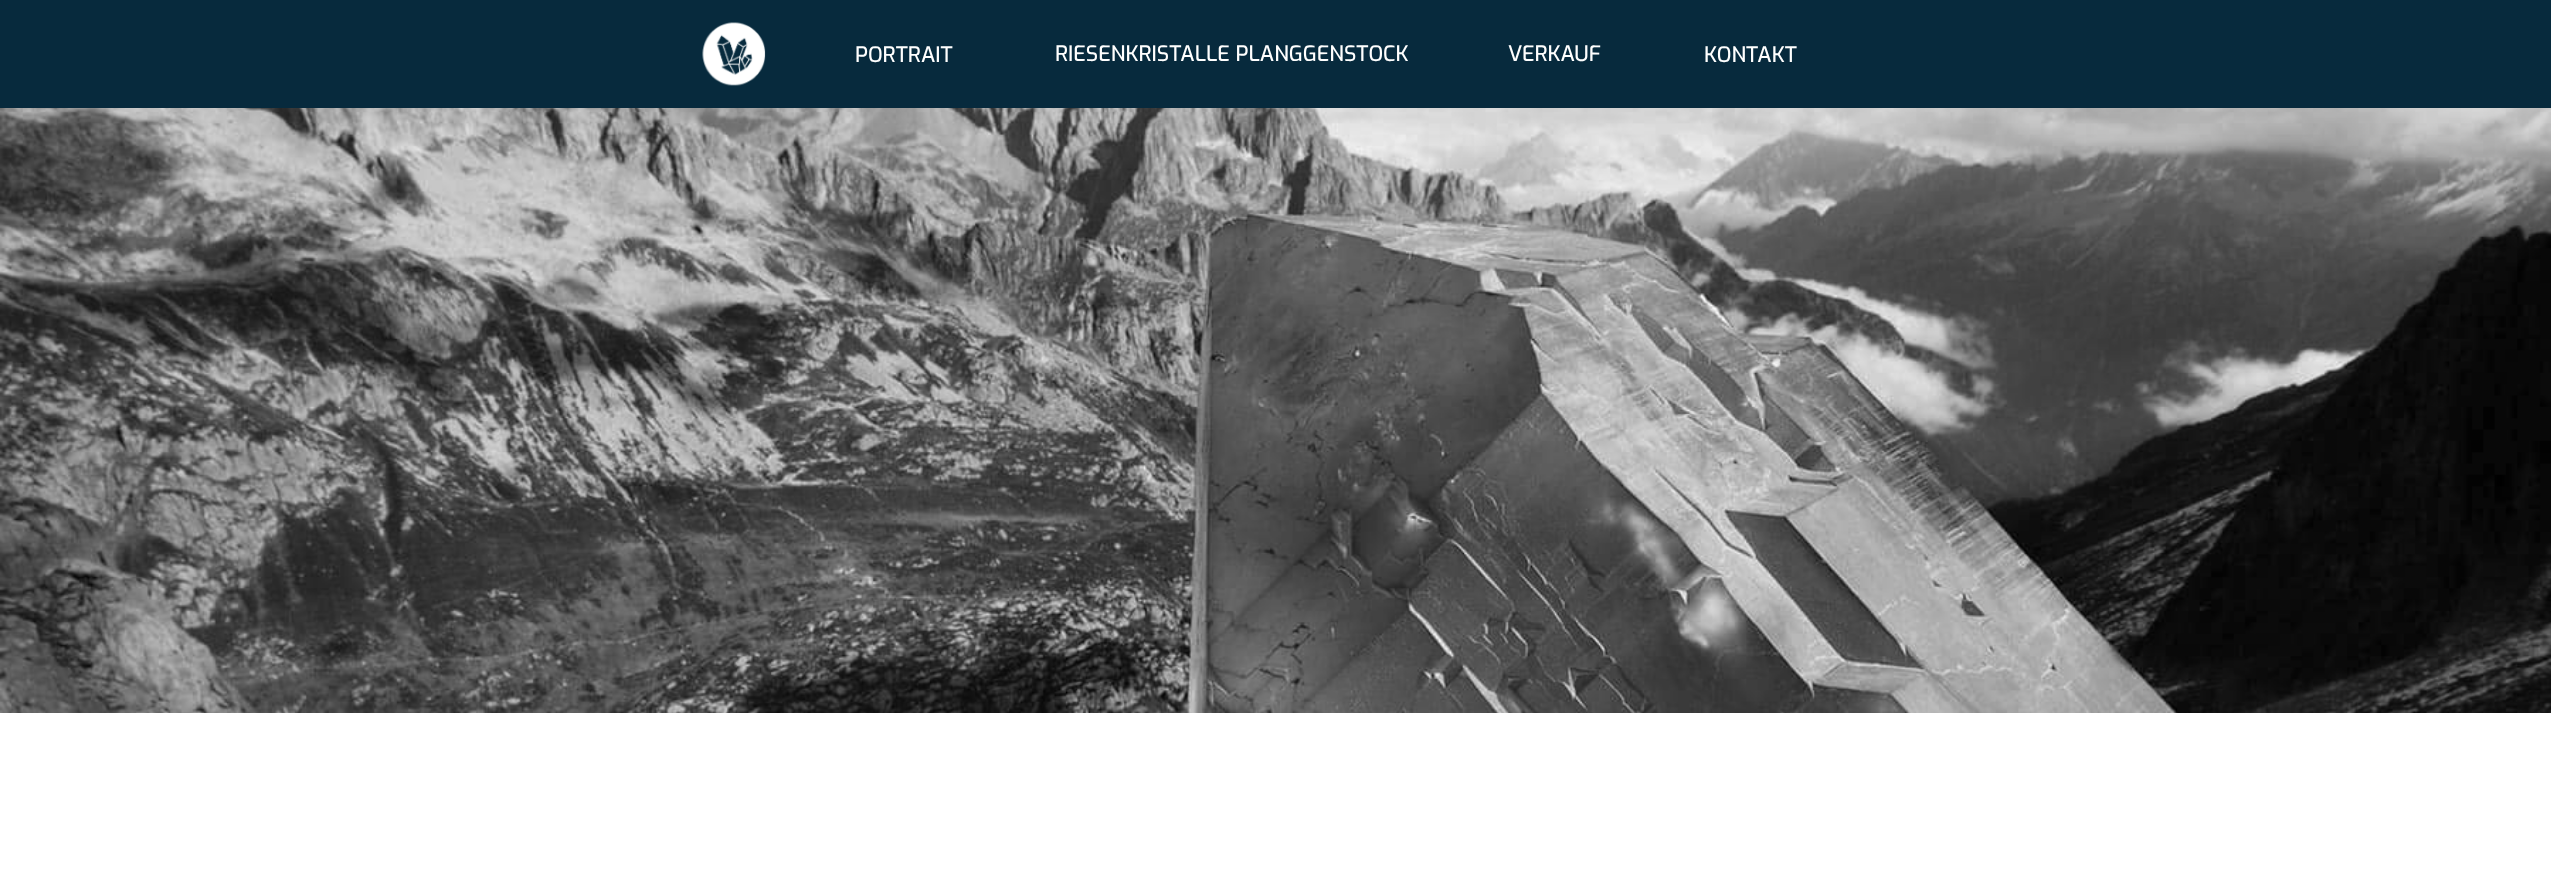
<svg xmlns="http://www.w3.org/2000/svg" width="2551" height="890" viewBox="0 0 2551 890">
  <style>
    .t1 { font: 500 21.25px Exo; fill: #fff; }
  </style>
  <rect width="100%" height="100%" fill="#fff"/>
  <rect x="0" y="0" width="2551" height="108" fill="#072a3d"/>
  <image x="702" y="22" width="64" height="64" href="images/1.png"/>
  <text x="855" y="62" class="t1">PORTRAIT</text>
  <text x="1055" y="61" class="t1">RIESENKRISTALLE PLANGGENSTOCK</text>
  <text x="1508" y="61" class="t1">VERKAUF</text>
  <text x="1704" y="62" class="t1">KONTAKT</text>
  <image x="0" y="108" width="2551" height="605" href="images/2.png"/>
</svg>
